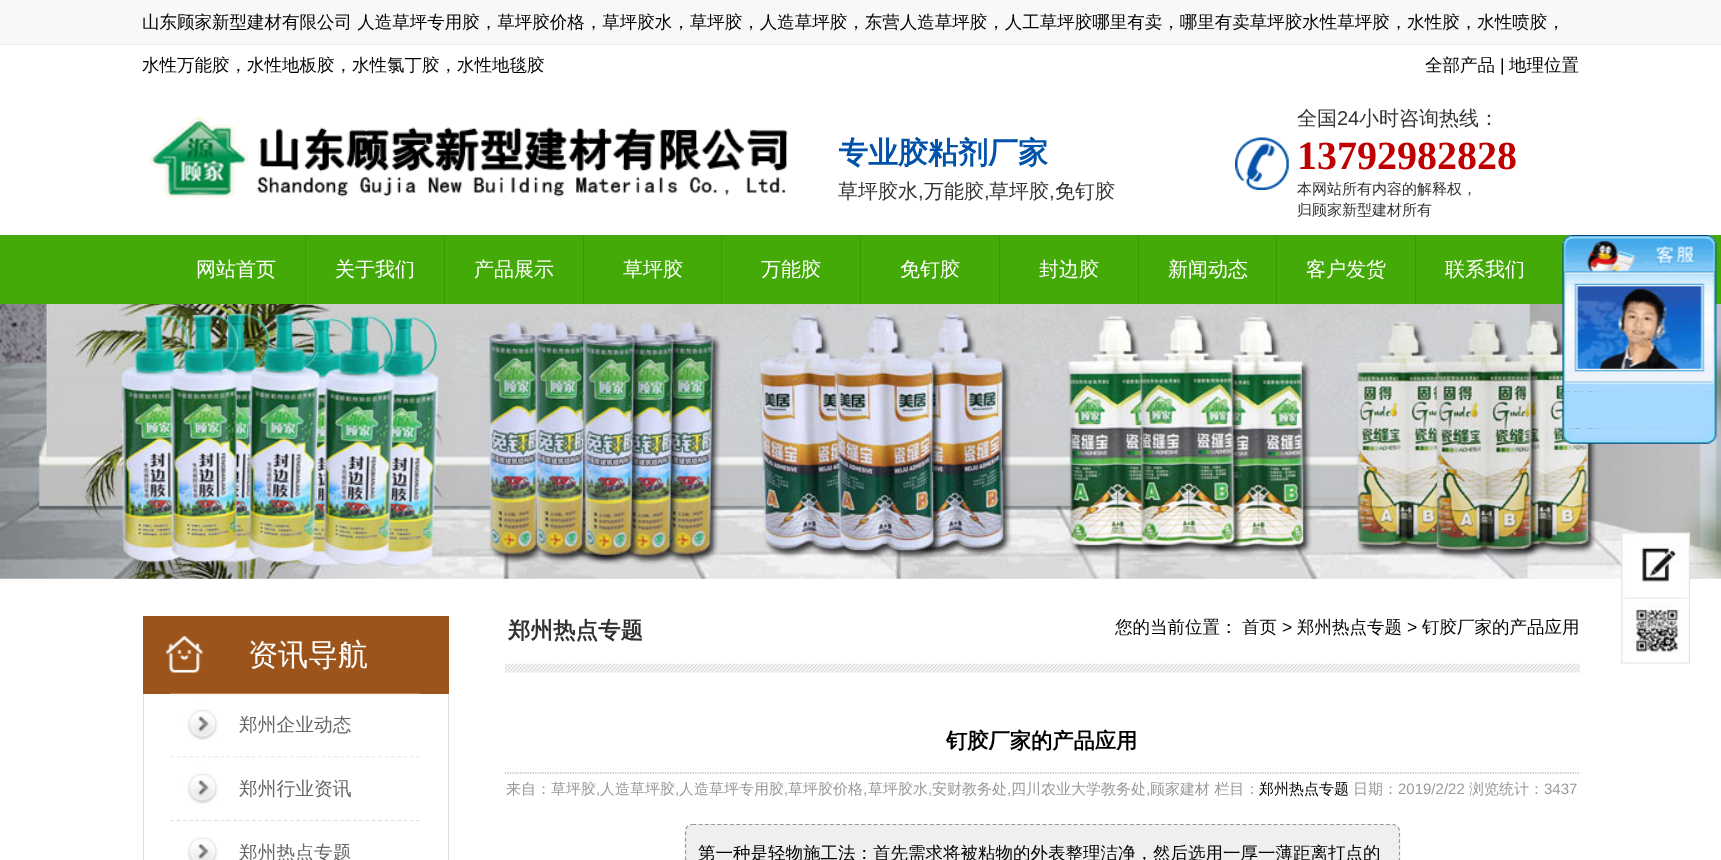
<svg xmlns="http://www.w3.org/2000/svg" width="1721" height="860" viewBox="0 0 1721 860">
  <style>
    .t1 { font: 500 17.5px WenQuanYi Zen Hei; fill: #000; }
    .t2 { font: 17.5px Liberation Sans; fill: #000; }
    .t3 { font: bold 30px WenQuanYi Zen Hei; fill: #0352a9; }
    .t4 { font: 500 20px WenQuanYi Zen Hei; fill: #333; }
    .t5 { font: 20px Liberation Sans; fill: #333; }
    .t6 { font: bold 40px Liberation Serif; fill: #c00000; }
    .t7 { font: 500 15px WenQuanYi Zen Hei; fill: #333; }
    .t8 { font: 500 20px WenQuanYi Zen Hei; fill: #fff; }
    .t9 { font: 500 30px WenQuanYi Zen Hei; fill: #fff; }
    .t10 { font: 500 18.75px WenQuanYi Zen Hei; fill: #666; }
    .t11 { font: bold 22.5px WenQuanYi Zen Hei; fill: #333; }
    .t12 { font: bold 21.25px WenQuanYi Zen Hei; fill: #000; }
    .t13 { font: 500 15px WenQuanYi Zen Hei; fill: #999; }
    .t14 { font: 15px Liberation Sans; fill: #999; }
    .t15 { font: 500 15px WenQuanYi Zen Hei; fill: #000; }
  </style>
  <defs>
    <clipPath id="clip1"><rect x="839" y="100" width="276" height="105"/></clipPath>
  </defs>
  <rect width="100%" height="100%" fill="#fff"/>
  <rect x="0" y="0" width="1721" height="44" fill="#f8f8f8"/>
  <rect x="0" y="44" width="1721" height="1" fill="#ececec"/>
  <text x="142" y="28" class="t1">山东顾家新型建材有限公司 人造草坪专用胶，草坪胶价格，草坪胶水，草坪胶，人造草坪胶，东营人造草坪胶，人工草坪胶哪里有卖，哪里有卖草坪胶水性草坪胶，水性胶，水性喷胶，</text>
  <text x="142" y="71" class="t1">水性万能胶，水性地板胶，水性氯丁胶，水性地毯胶</text>
  <text x="1425" y="71" class="t1">全部产品</text>
  <text x="1500" y="71" class="t2">|</text>
  <text x="1509" y="71" class="t1">地理位置</text>
  <image x="150" y="117" width="638" height="81" href="images/1.png"/>
  <g clip-path="url(#clip1)">
    <text x="838" y="163" class="t3">专业胶粘剂厂家</text>
  </g>
  <text x="838" y="198" class="t4">草坪胶水</text>
  <text x="918" y="198" class="t5">,</text>
  <text x="924" y="198" class="t4">万能胶</text>
  <text x="984" y="198" class="t5">,</text>
  <text x="989" y="198" class="t4">草坪胶</text>
  <text x="1049" y="198" class="t5">,</text>
  <text x="1055" y="198" class="t4">免钉胶</text>
  <image x="1235" y="137" width="54" height="53" href="images/2.png"/>
  <text x="1297" y="125" class="t4">全国</text>
  <text x="1337" y="125" class="t5">24</text>
  <text x="1359" y="125" class="t4">小时咨询热线：</text>
  <text x="1297" y="169" class="t6">13792982828</text>
  <text x="1297" y="194" class="t7">本网站所有内容的解释权，</text>
  <text x="1297" y="215" class="t7">归顾家新型建材所有</text>
  <rect x="0" y="235" width="1721" height="69" fill="#44aa08"/>
  <text x="196" y="276" class="t8">网站首页</text>
  <rect x="305" y="235" width="1" height="69" fill="#3d9907"/>
  <text x="335" y="276" class="t8">关于我们</text>
  <rect x="444" y="235" width="1" height="69" fill="#3d9907"/>
  <text x="474" y="276" class="t8">产品展示</text>
  <rect x="583" y="235" width="1" height="69" fill="#3d9907"/>
  <text x="623" y="276" class="t8">草坪胶</text>
  <rect x="721" y="235" width="1" height="69" fill="#3d9907"/>
  <text x="761" y="276" class="t8">万能胶</text>
  <rect x="860" y="235" width="1" height="69" fill="#3d9907"/>
  <text x="900" y="276" class="t8">免钉胶</text>
  <rect x="999" y="235" width="1" height="69" fill="#3d9907"/>
  <text x="1039" y="276" class="t8">封边胶</text>
  <rect x="1138" y="235" width="1" height="69" fill="#3d9907"/>
  <text x="1168" y="276" class="t8">新闻动态</text>
  <rect x="1276" y="235" width="1" height="69" fill="#3d9907"/>
  <text x="1306" y="276" class="t8">客户发货</text>
  <rect x="1415" y="235" width="1" height="69" fill="#3d9907"/>
  <text x="1445" y="276" class="t8">联系我们</text>
  <image x="0" y="304" width="1721" height="275" href="images/6.png"/>
  <image x="1562" y="235" width="155" height="157" href="images/3.png"/>
  <image x="1562" y="391" width="155" height="39" href="images/4.png"/>
  <image x="1562" y="428" width="155" height="16" href="images/5.png"/>
  <image x="1621" y="532" width="69" height="67" href="images/7.png"/>
  <image x="1621" y="598" width="69" height="66" href="images/8.png"/>
  <rect x="143" y="616" width="306" height="78" fill="#9c541a"/>
  <image x="166" y="636" width="37" height="37" href="images/9.png"/>
  <text x="248" y="665" class="t9">资讯导航</text>
  <rect x="448" y="694" width="1" height="166" fill="#ddd"/>
  <rect x="143" y="694" width="1" height="166" fill="#ddd"/>
  <image x="170" y="693" width="250" height="47" href="images/10.png"/>
  <text x="239" y="731" class="t10">郑州企业动态</text>
  <path d="M170 757H420" fill="none" stroke="#ddd" stroke-width="1.2" stroke-dasharray="3.75 2.56"/>
  <image x="170" y="757" width="250" height="47" href="images/11.png"/>
  <text x="239" y="795" class="t10">郑州行业资讯</text>
  <path d="M170 820.5H420" fill="none" stroke="#ddd" stroke-width="1.2" stroke-dasharray="3.75 2.56"/>
  <image x="187" y="837" width="31" height="23" href="images/12.png"/>
  <text x="239" y="859" class="t10">郑州热点专题</text>
  <image x="505" y="663" width="1075" height="10" href="images/13.png"/>
  <text x="508" y="638" class="t11">郑州热点专题</text>
  <text x="1115" y="633" class="t1">您的当前位置：</text>
  <text x="1242" y="633" class="t1">首页</text>
  <text x="1282" y="633" class="t2">&gt;</text>
  <text x="1297" y="633" class="t1">郑州热点专题</text>
  <text x="1407" y="633" class="t2">&gt;</text>
  <text x="1422" y="633" class="t1">钉胶厂家的产品应用</text>
  <path d="M505 773H1580" fill="none" stroke="#999" stroke-width="1.2" stroke-dasharray="1.25 1.25"/>
  <text x="946" y="748" class="t12">钉胶厂家的产品应用</text>
  <text x="506" y="794" class="t13">来自：草坪胶</text>
  <text x="596" y="794" class="t14">,</text>
  <text x="600" y="794" class="t13">人造草坪胶</text>
  <text x="675" y="794" class="t14">,</text>
  <text x="679" y="794" class="t13">人造草坪专用胶</text>
  <text x="784" y="794" class="t14">,</text>
  <text x="788" y="794" class="t13">草坪胶价格</text>
  <text x="863" y="794" class="t14">,</text>
  <text x="868" y="794" class="t13">草坪胶水</text>
  <text x="928" y="794" class="t14">,</text>
  <text x="932" y="794" class="t13">安财教务处</text>
  <text x="1007" y="794" class="t14">,</text>
  <text x="1011" y="794" class="t13">四川农业大学教务处</text>
  <text x="1146" y="794" class="t14">,</text>
  <text x="1150" y="794" class="t13">顾家建材 栏目：</text>
  <text x="1259" y="794" class="t15">郑州热点专题</text>
  <text x="1353" y="794" class="t13">日期：</text>
  <text x="1398" y="794" class="t14">2019/2/22</text>
  <text x="1469" y="794" class="t13">浏览统计：</text>
  <text x="1544" y="794" class="t14">3437</text>
  <rect x="685" y="824" width="715" height="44" rx="8" fill="#efefef"/>
  <path d="M692.5 824.5H1392.5C1396.5 824.5 1399.5 827.5 1399.5 831V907.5C1399.5 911.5 1396.5 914.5 1392.5 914.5H692.5C688.5 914.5 685.5 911.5 685.5 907.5V831C685.5 827.5 688.5 824.5 692.5 824.5Z" fill="none" stroke="#999" stroke-width="1.2" stroke-dasharray="3.75 2.5"/>
  <text x="698" y="859" class="t1">第一种是轻物施工法：首先需求将被粘物的外表整理洁净，然后选用一厚一薄距离打点的</text>
</svg>
